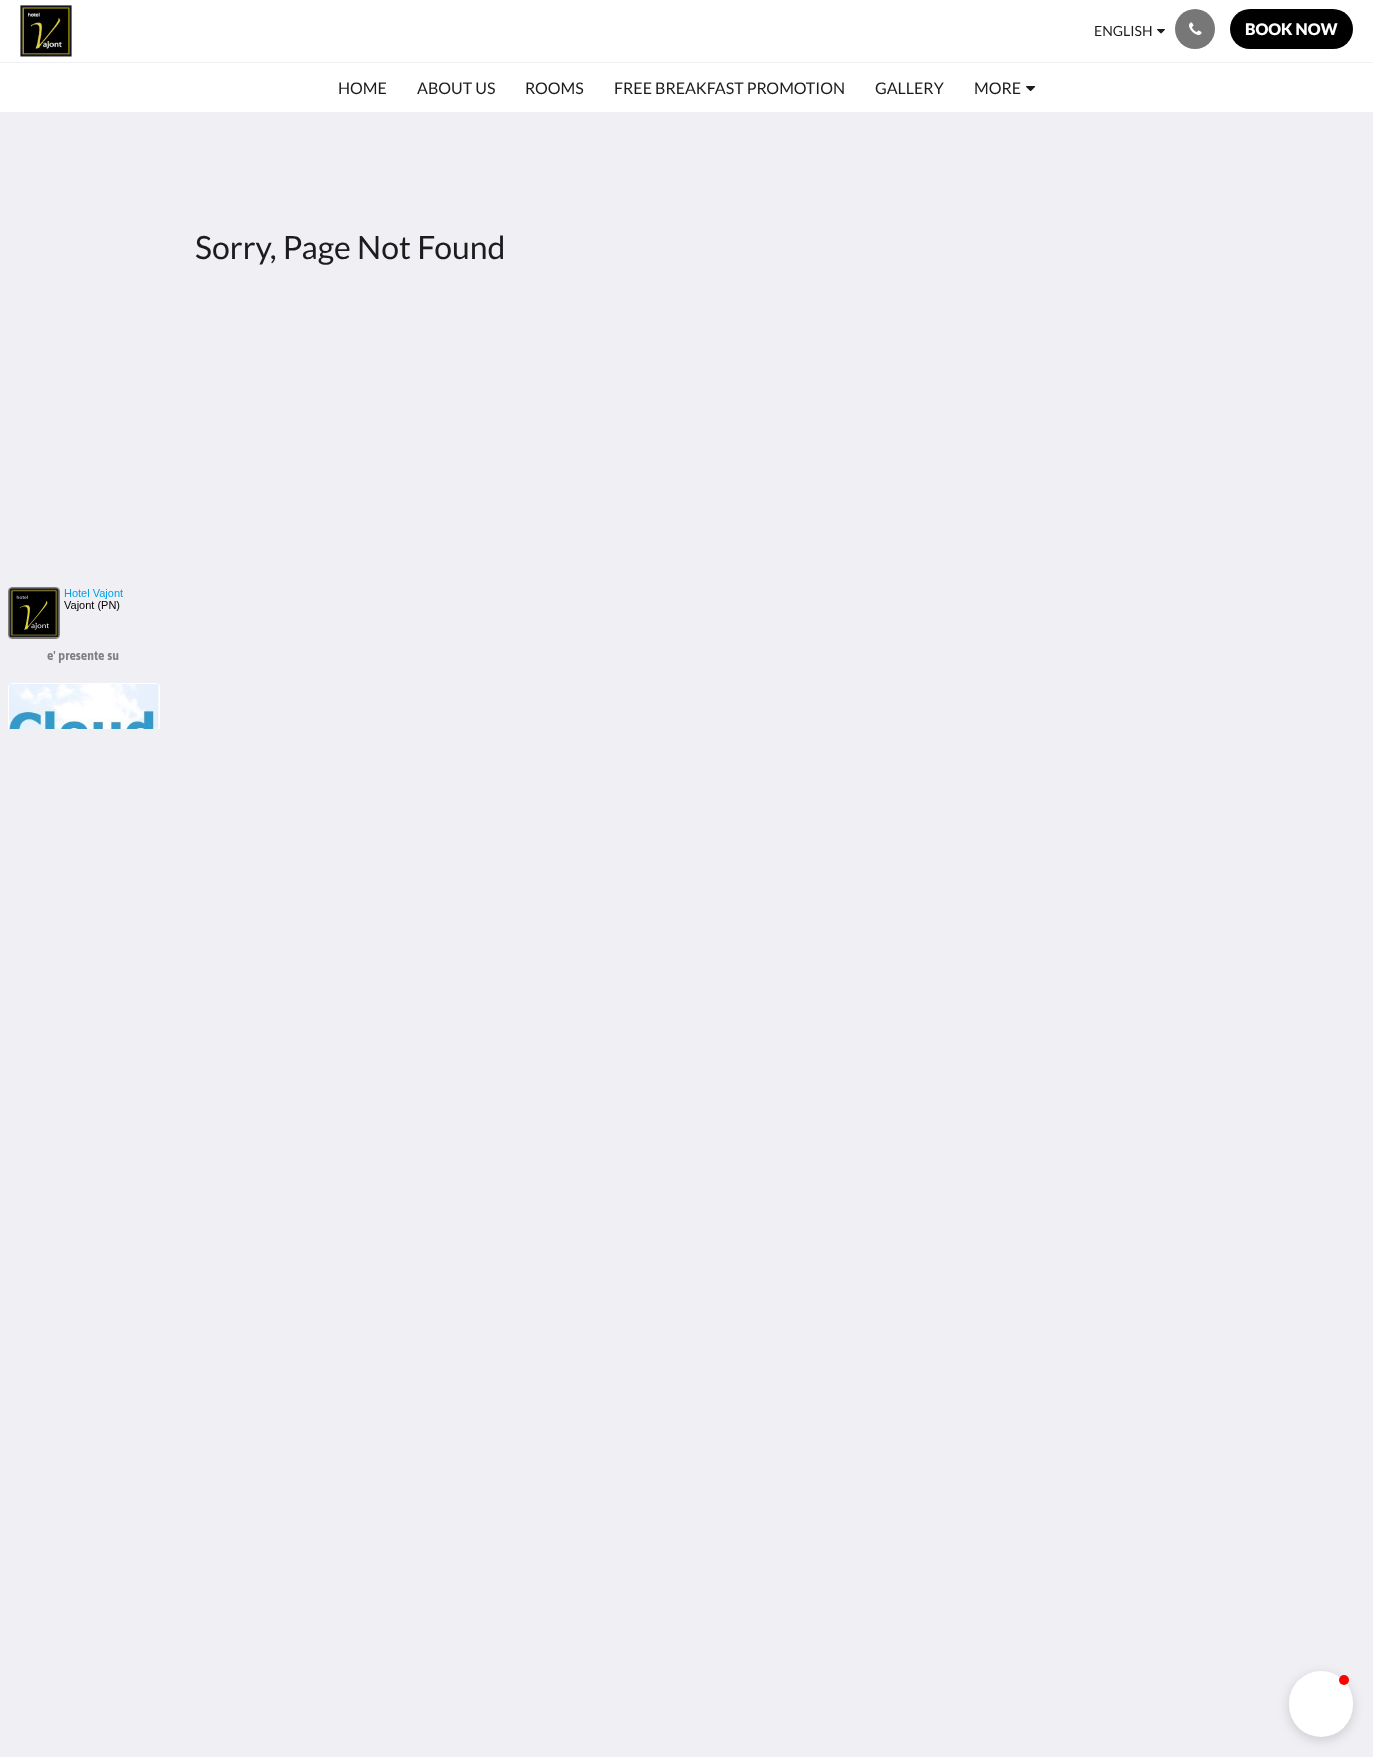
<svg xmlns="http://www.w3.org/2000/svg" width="1373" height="1757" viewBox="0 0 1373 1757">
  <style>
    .t1 { font: 14px Lato; fill: #1c1c1c; }
    .t2 { font: 900 16px Lato; fill: #fff; }
    .t3 { font: 16px Lato; fill: #1c1c1c; }
    .t4 { font: 32px Lato; fill: #1c1c1c; }
  </style>
  <rect width="100%" height="100%" fill="#efeff4"/>
  <rect x="0" y="0" width="1373" height="62" fill="#fff"/>
  <image x="20" y="5" width="52" height="52" href="images/1.png"/>
  <text x="1094" y="36" class="t1">ENGLISH</text>
  <image x="1157" y="29" width="8" height="5" href="images/2.png"/>
  <circle cx="1195" cy="29" r="20" fill="#777"/>
  <image x="1189" y="22" width="13" height="13" href="images/3.png"/>
  <rect x="1230" y="9" width="123" height="40" rx="20" fill="#000"/>
  <text x="1245" y="35" class="t2">BOOK NOW</text>
  <rect x="0" y="63" width="1373" height="49" fill="#fff"/>
  <text x="338" y="94" class="t3">HOME</text>
  <text x="417" y="94" class="t3">ABOUT US</text>
  <text x="525" y="94" class="t3">ROOMS</text>
  <text x="614" y="94" class="t3">FREE BREAKFAST PROMOTION</text>
  <text x="875" y="94" class="t3">GALLERY</text>
  <text x="974" y="94" class="t3">MORE</text>
  <image x="1026" y="86" width="10" height="6" href="images/4.png"/>
  <text x="195" y="259" class="t4">Sorry, Page Not Found</text>
  <image x="8" y="587" width="152" height="142" href="images/5.png"/>
  <rect x="1289" y="1674" width="64" height="66" rx="32" fill="#00000026" filter="blur(6px)"/>
  <rect x="1289" y="1671" width="64" height="66" rx="32" fill="#fff"/>
  <circle cx="1344" cy="1680" r="5" fill="#f00"/>
</svg>
